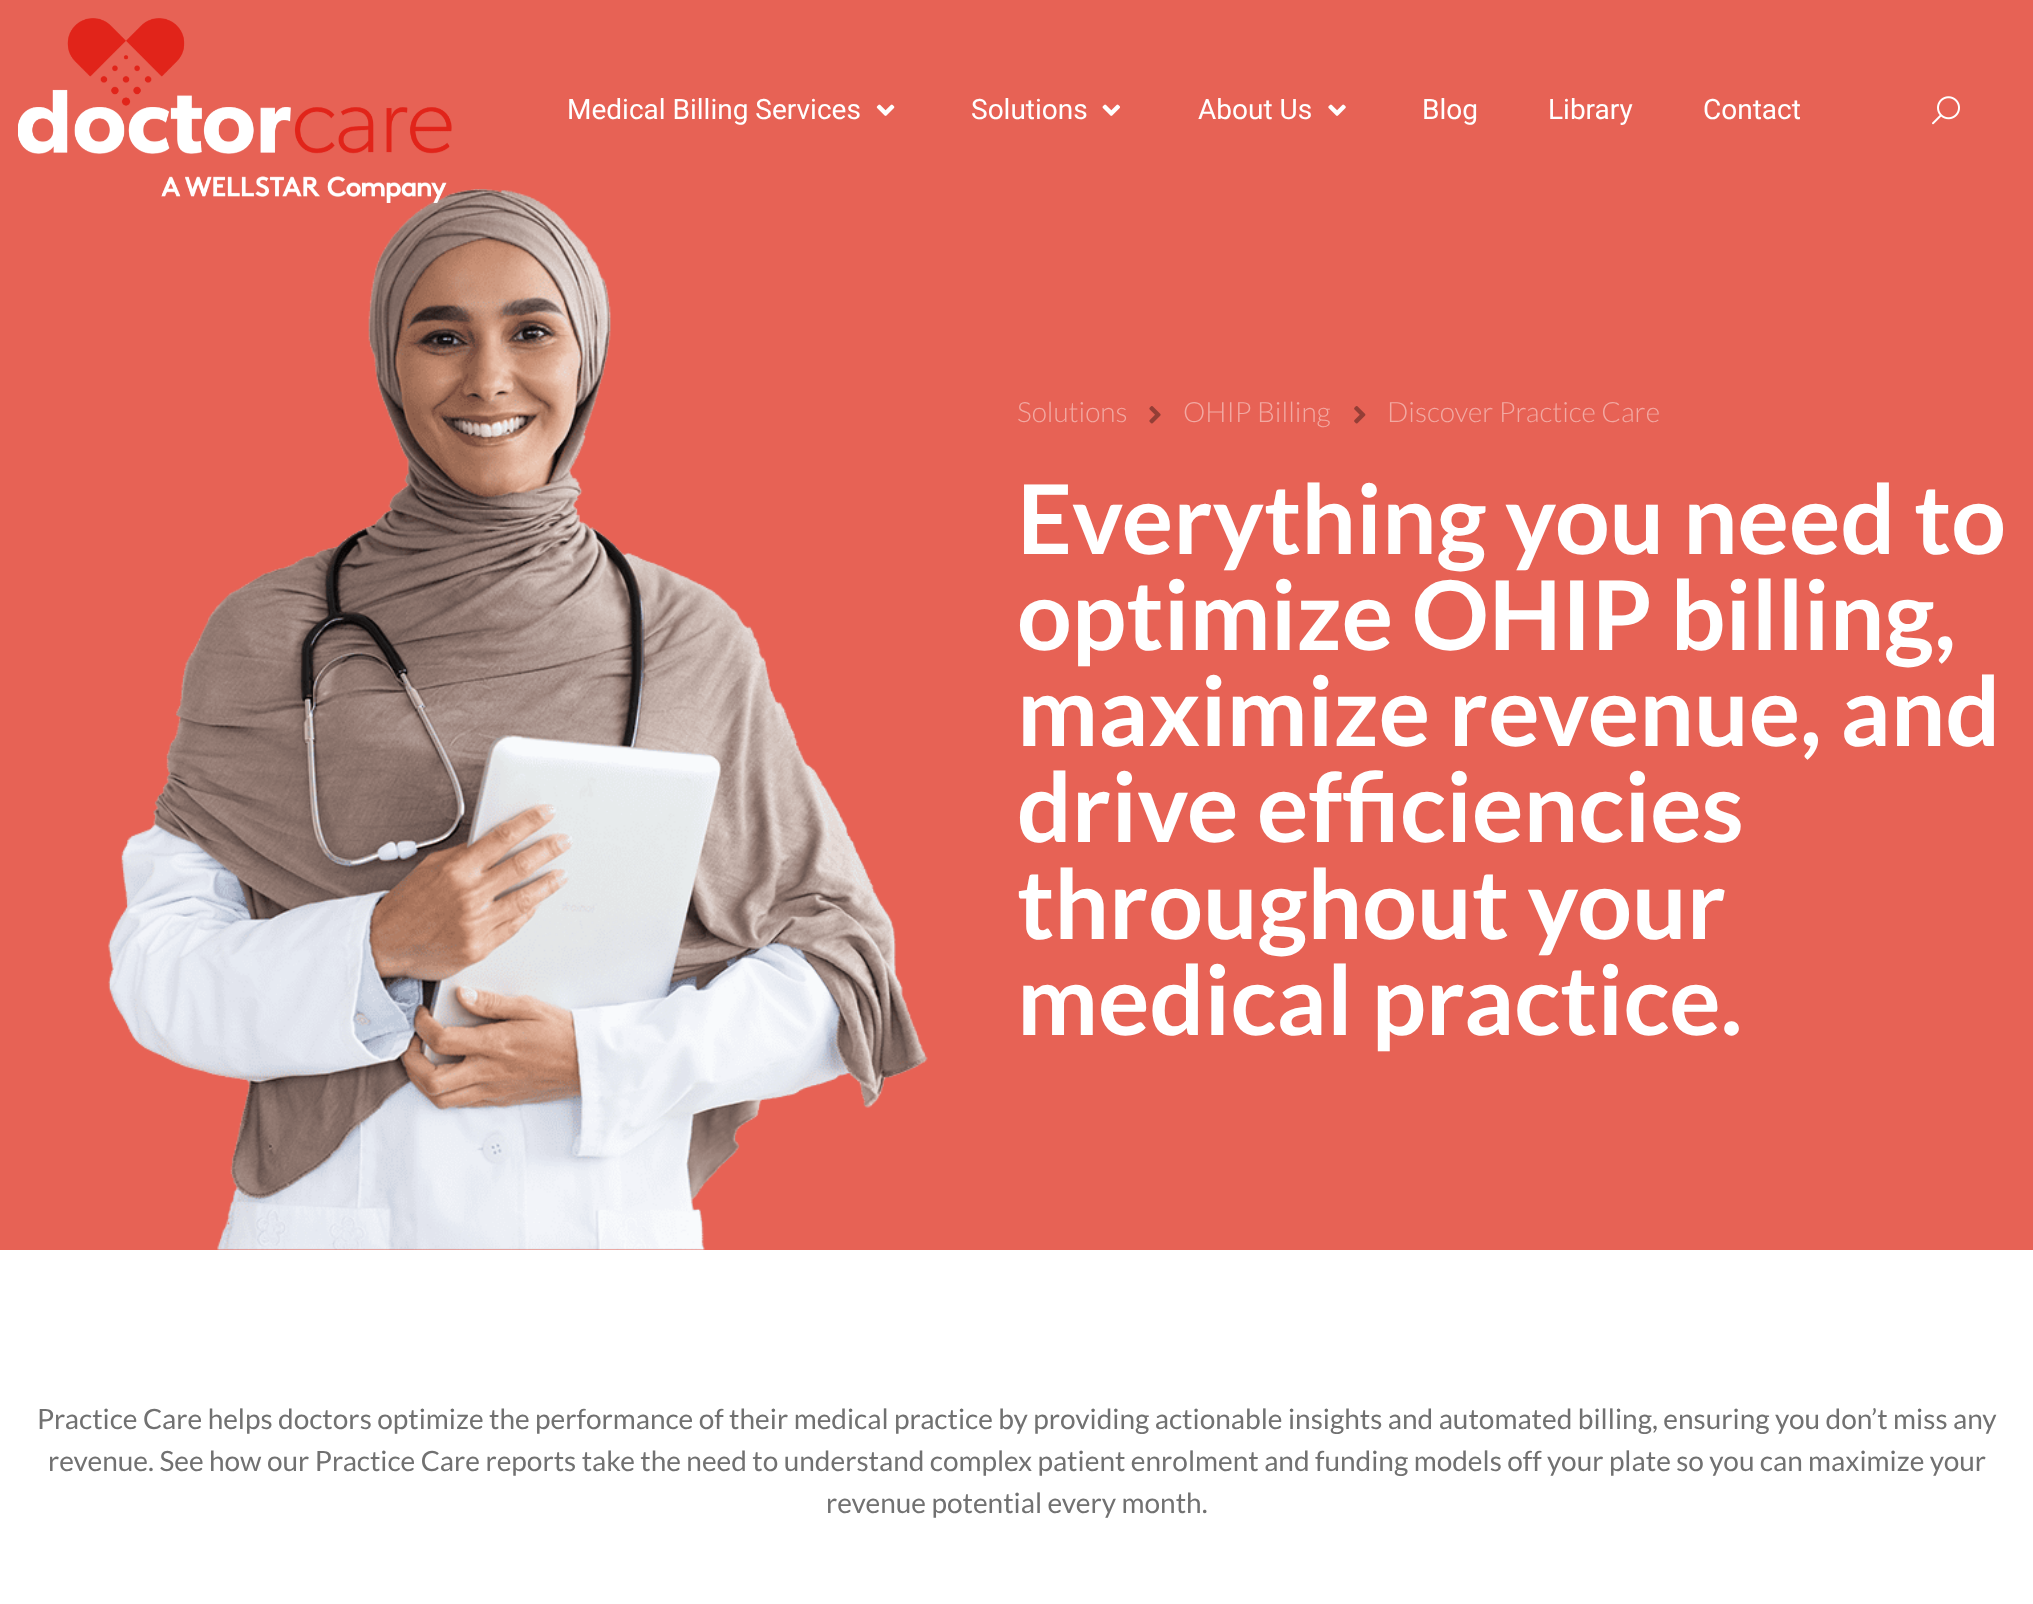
<svg xmlns="http://www.w3.org/2000/svg" width="2033" height="1604" viewBox="0 0 2033 1604">
  <style>
    .t1 { font: 28px Roboto; fill: #fff; }
    .t2 { font: 300 28px Lato; fill: #f2a9a2; }
    .t3 { font: bold 96.25px Lato; fill: #fff; }
    .t4 { font: 28px Lato; fill: #717171; }
  </style>
  <rect width="100%" height="100%" fill="#fff"/>
  <rect x="0" y="0" width="2033" height="1250" fill="#e76255"/>
  <image x="108" y="189" width="820" height="1061" href="images/6.png"/>
  <image x="18" y="18" width="434" height="185" href="images/1.png"/>
  <text x="567" y="119" class="t1">Medical Billing Services</text>
  <image x="876" y="104" width="19" height="12" href="images/2.png"/>
  <text x="971" y="119" class="t1">Solutions</text>
  <image x="1102" y="104" width="18" height="12" href="images/3.png"/>
  <text x="1198" y="119" class="t1">About Us</text>
  <image x="1328" y="104" width="18" height="12" href="images/4.png"/>
  <text x="1422" y="119" class="t1">Blog</text>
  <text x="1548" y="119" class="t1">Library</text>
  <text x="1703" y="119" class="t1">Contact</text>
  <image x="1932" y="96" width="28" height="29" href="images/5.png"/>
  <text x="1017" y="422" class="t2">Solutions</text>
  <image x="1149" y="406" width="12" height="18" href="images/7.png"/>
  <text x="1183" y="422" class="t2">OHIP Billing</text>
  <image x="1354" y="406" width="12" height="18" href="images/8.png"/>
  <text x="1387" y="422" class="t2">Discover Practice Care</text>
  <text x="1017" y="554" class="t3">Everything you need to</text>
  <text x="1017" y="650" class="t3">optimize OHIP billing,</text>
  <text x="1017" y="746" class="t3">maximize revenue, and</text>
  <text x="1017" y="842" class="t3">drive efficiencies</text>
  <text x="1017" y="939" class="t3">throughout your</text>
  <text x="1017" y="1035" class="t3">medical practice.</text>
  <text x="37" y="1429" class="t4">Practice Care helps doctors optimize the performance of their medical practice by providing actionable insights and automated billing, ensuring you don’t miss any</text>
  <text x="48" y="1471" class="t4">revenue. See how our Practice Care reports take the need to understand complex patient enrolment and funding models off your plate so you can maximize your</text>
  <text x="826" y="1513" class="t4">revenue potential every month.</text>
</svg>
